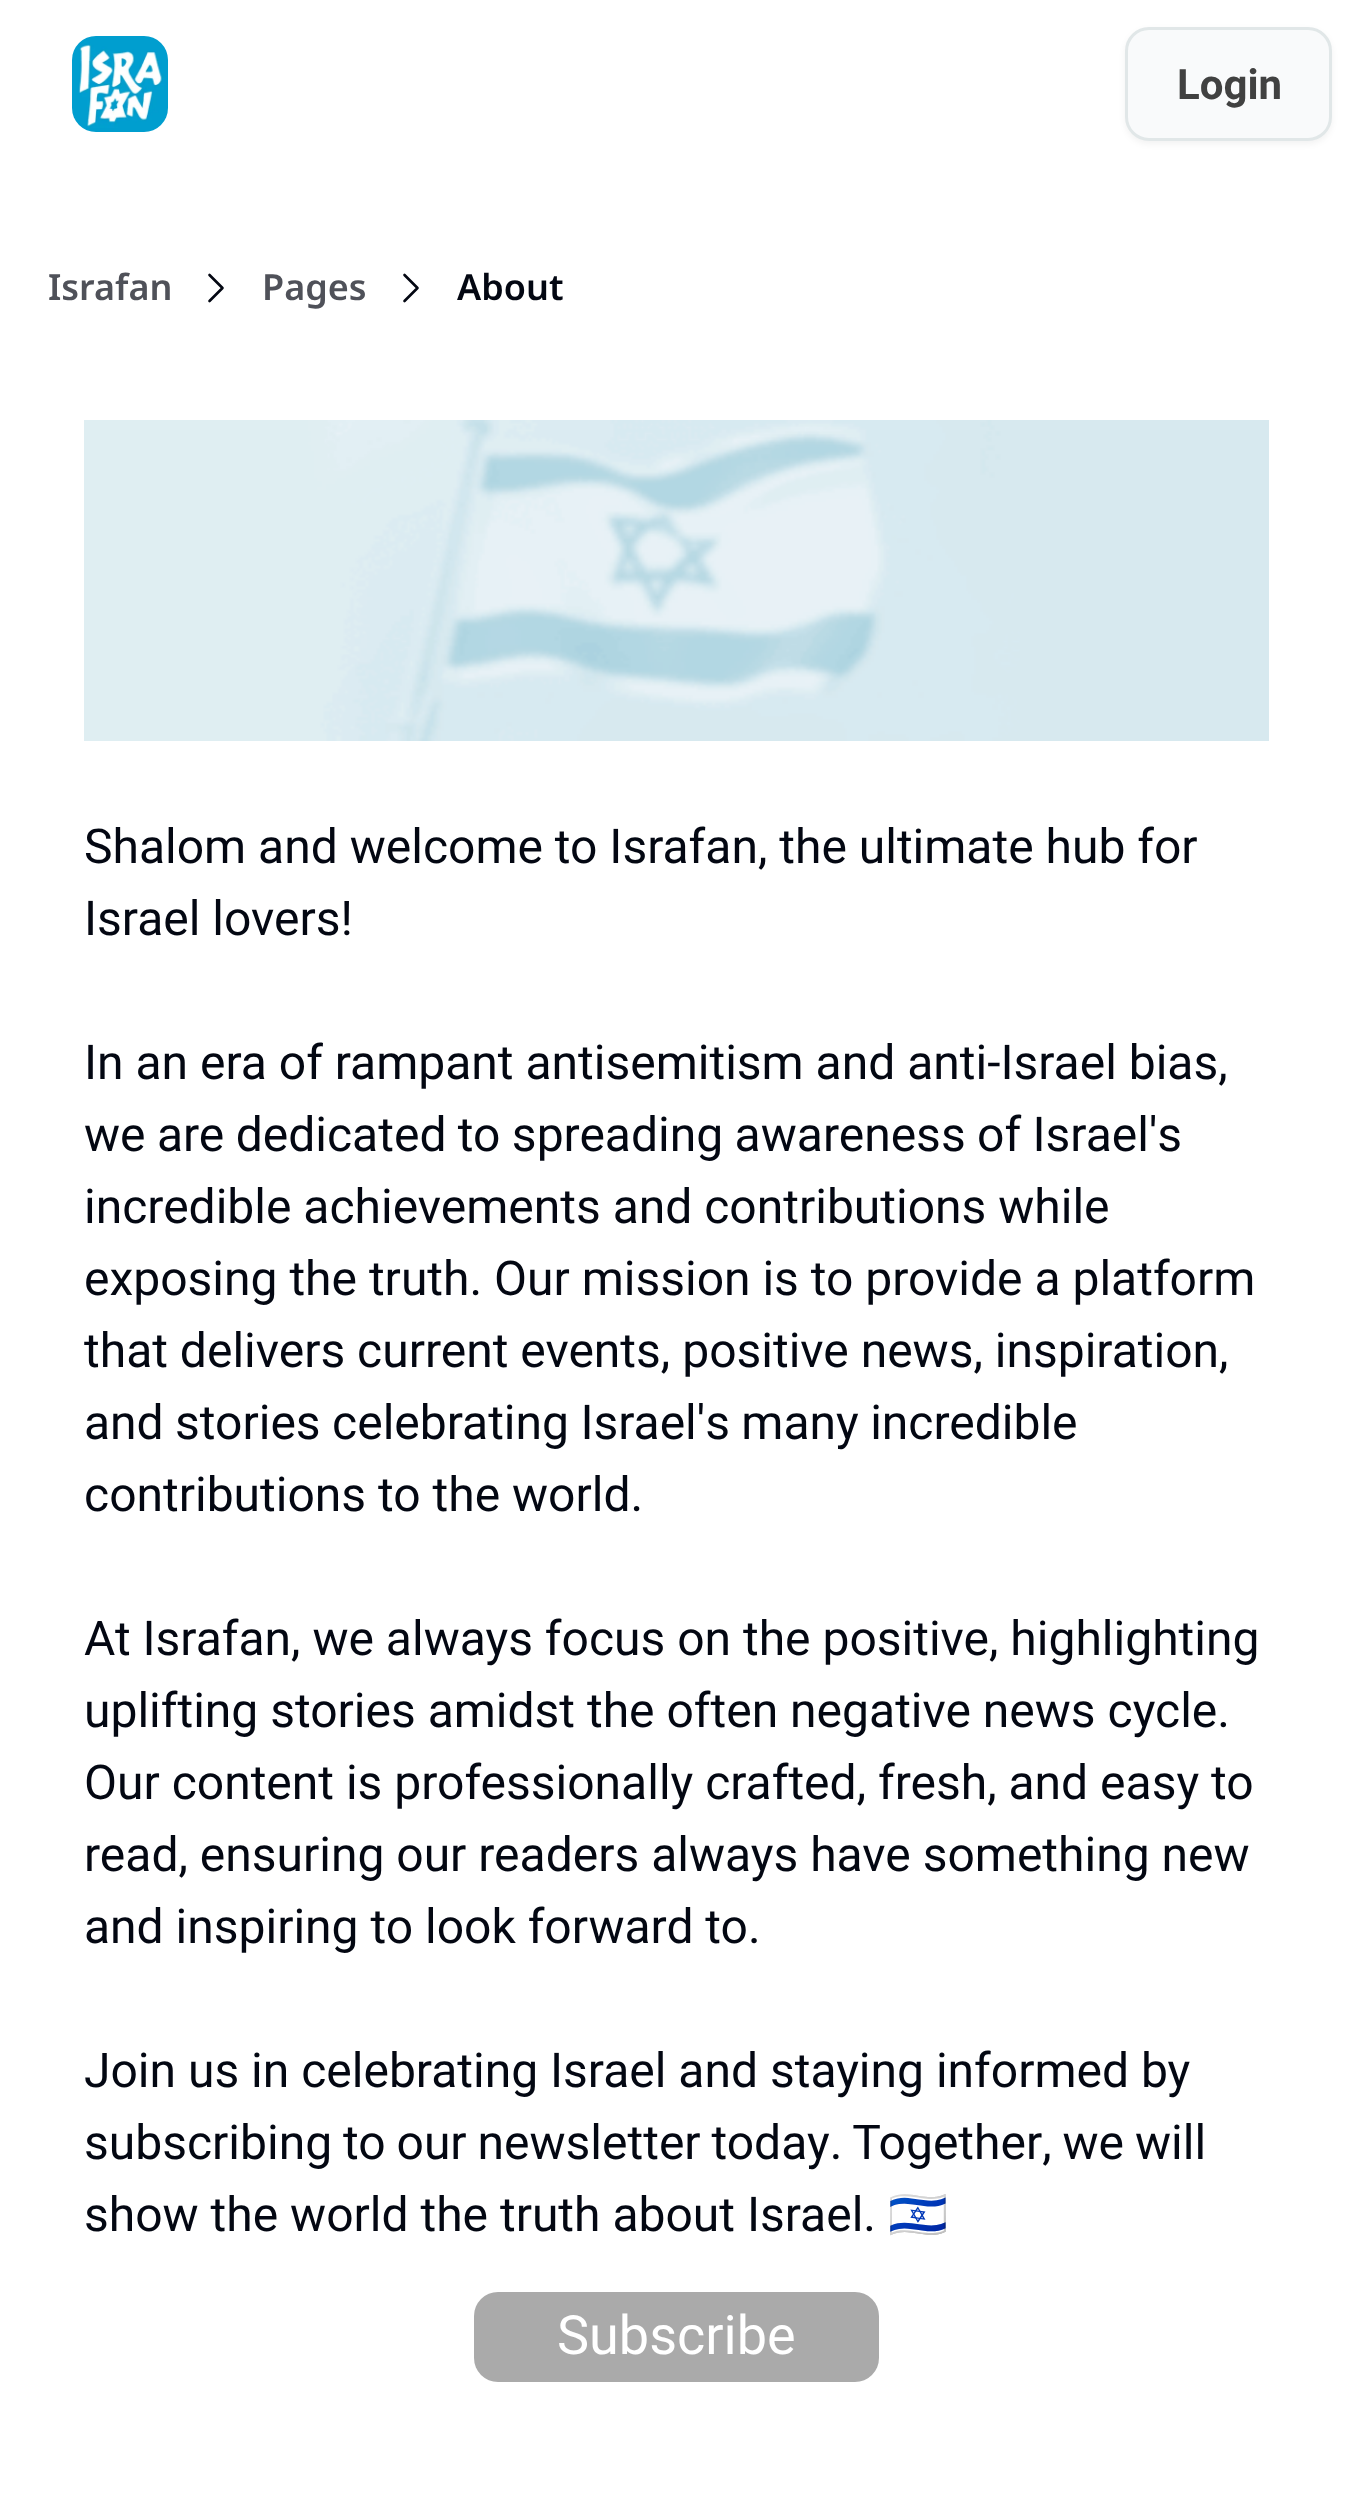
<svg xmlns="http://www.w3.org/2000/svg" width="1352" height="2509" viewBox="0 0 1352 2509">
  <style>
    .t1 { font: bold 42px Roboto; fill: #414141; }
    .t2 { font: 600 36px Noto Sans; fill: #4f5159; }
    .t3 { font: 600 36px Noto Sans; fill: #030712; }
    .t4 { font: 48px Roboto; fill: #030712; }
    .t5 { font: 48px Noto Color Emoji; fill: #030712; }
    .t6 { font: 54px Roboto; fill: #fff; }
  </style>
  <rect width="100%" height="100%" fill="#fff"/>
  <image x="72" y="36" width="96" height="96" href="images/1.png"/>
  <rect x="1125" y="30" width="207" height="114" rx="24" fill="#0000000d" filter="blur(3px)"/>
  <rect x="1126.5" y="28.5" width="204" height="111" rx="22.5" fill="#f9fafb" stroke="#e1e7e8" stroke-width="3"/>
  <text x="1177" y="99" class="t1">Login</text>
  <text x="48" y="300" class="t2">Israfan</text>
  <path d="M209.5 275L222.5 288L209.5 301" fill="none" stroke="#030712" stroke-width="2.6" stroke-linecap="round" stroke-linejoin="round"/>
  <text x="262" y="300" class="t2">Pages</text>
  <path d="M404.5 275L417.5 288L404.5 301" fill="none" stroke="#030712" stroke-width="2.6" stroke-linecap="round" stroke-linejoin="round"/>
  <text x="457" y="300" class="t3">About</text>
  <image x="84" y="420" width="1185" height="321" href="images/2.png"/>
  <text x="84" y="863" class="t4">Shalom and welcome to Israfan, the ultimate hub for</text>
  <text x="84" y="935" class="t4">Israel lovers!</text>
  <text x="84" y="1079" class="t4">In an era of rampant antisemitism and anti-Israel bias,</text>
  <text x="84" y="1151" word-spacing="-0.5" class="t4">we are dedicated to spreading awareness of Israel's</text>
  <text x="84" y="1223" class="t4">incredible achievements and contributions while</text>
  <text x="84" y="1295" class="t4">exposing the truth. Our mission is to provide a platform</text>
  <text x="84" y="1367" class="t4">that delivers current events, positive news, inspiration,</text>
  <text x="84" y="1439" word-spacing="-0.5" class="t4">and stories celebrating Israel's many incredible</text>
  <text x="84" y="1511" class="t4">contributions to the world.</text>
  <text x="84" y="1655" class="t4">At Israfan, we always focus on the positive, highlighting</text>
  <text x="84" y="1727" class="t4">uplifting stories amidst the often negative news cycle.</text>
  <text x="84" y="1799" class="t4">Our content is professionally crafted, fresh, and easy to</text>
  <text x="84" y="1871" class="t4">read, ensuring our readers always have something new</text>
  <text x="84" y="1943" class="t4">and inspiring to look forward to.</text>
  <text x="84" y="2087" class="t4">Join us in celebrating Israel and staying informed by</text>
  <text x="84" y="2159" word-spacing="-1" class="t4">subscribing to our newsletter today. Together, we will</text>
  <text x="84" y="2231" class="t4">show the world the truth about Israel.</text>
  <text x="888" y="2231" class="t5">🇮🇱</text>
  <rect x="474" y="2292" width="405" height="90" rx="24" fill="#aaa"/>
  <text x="557" y="2354" class="t6">Subscribe</text>
</svg>
